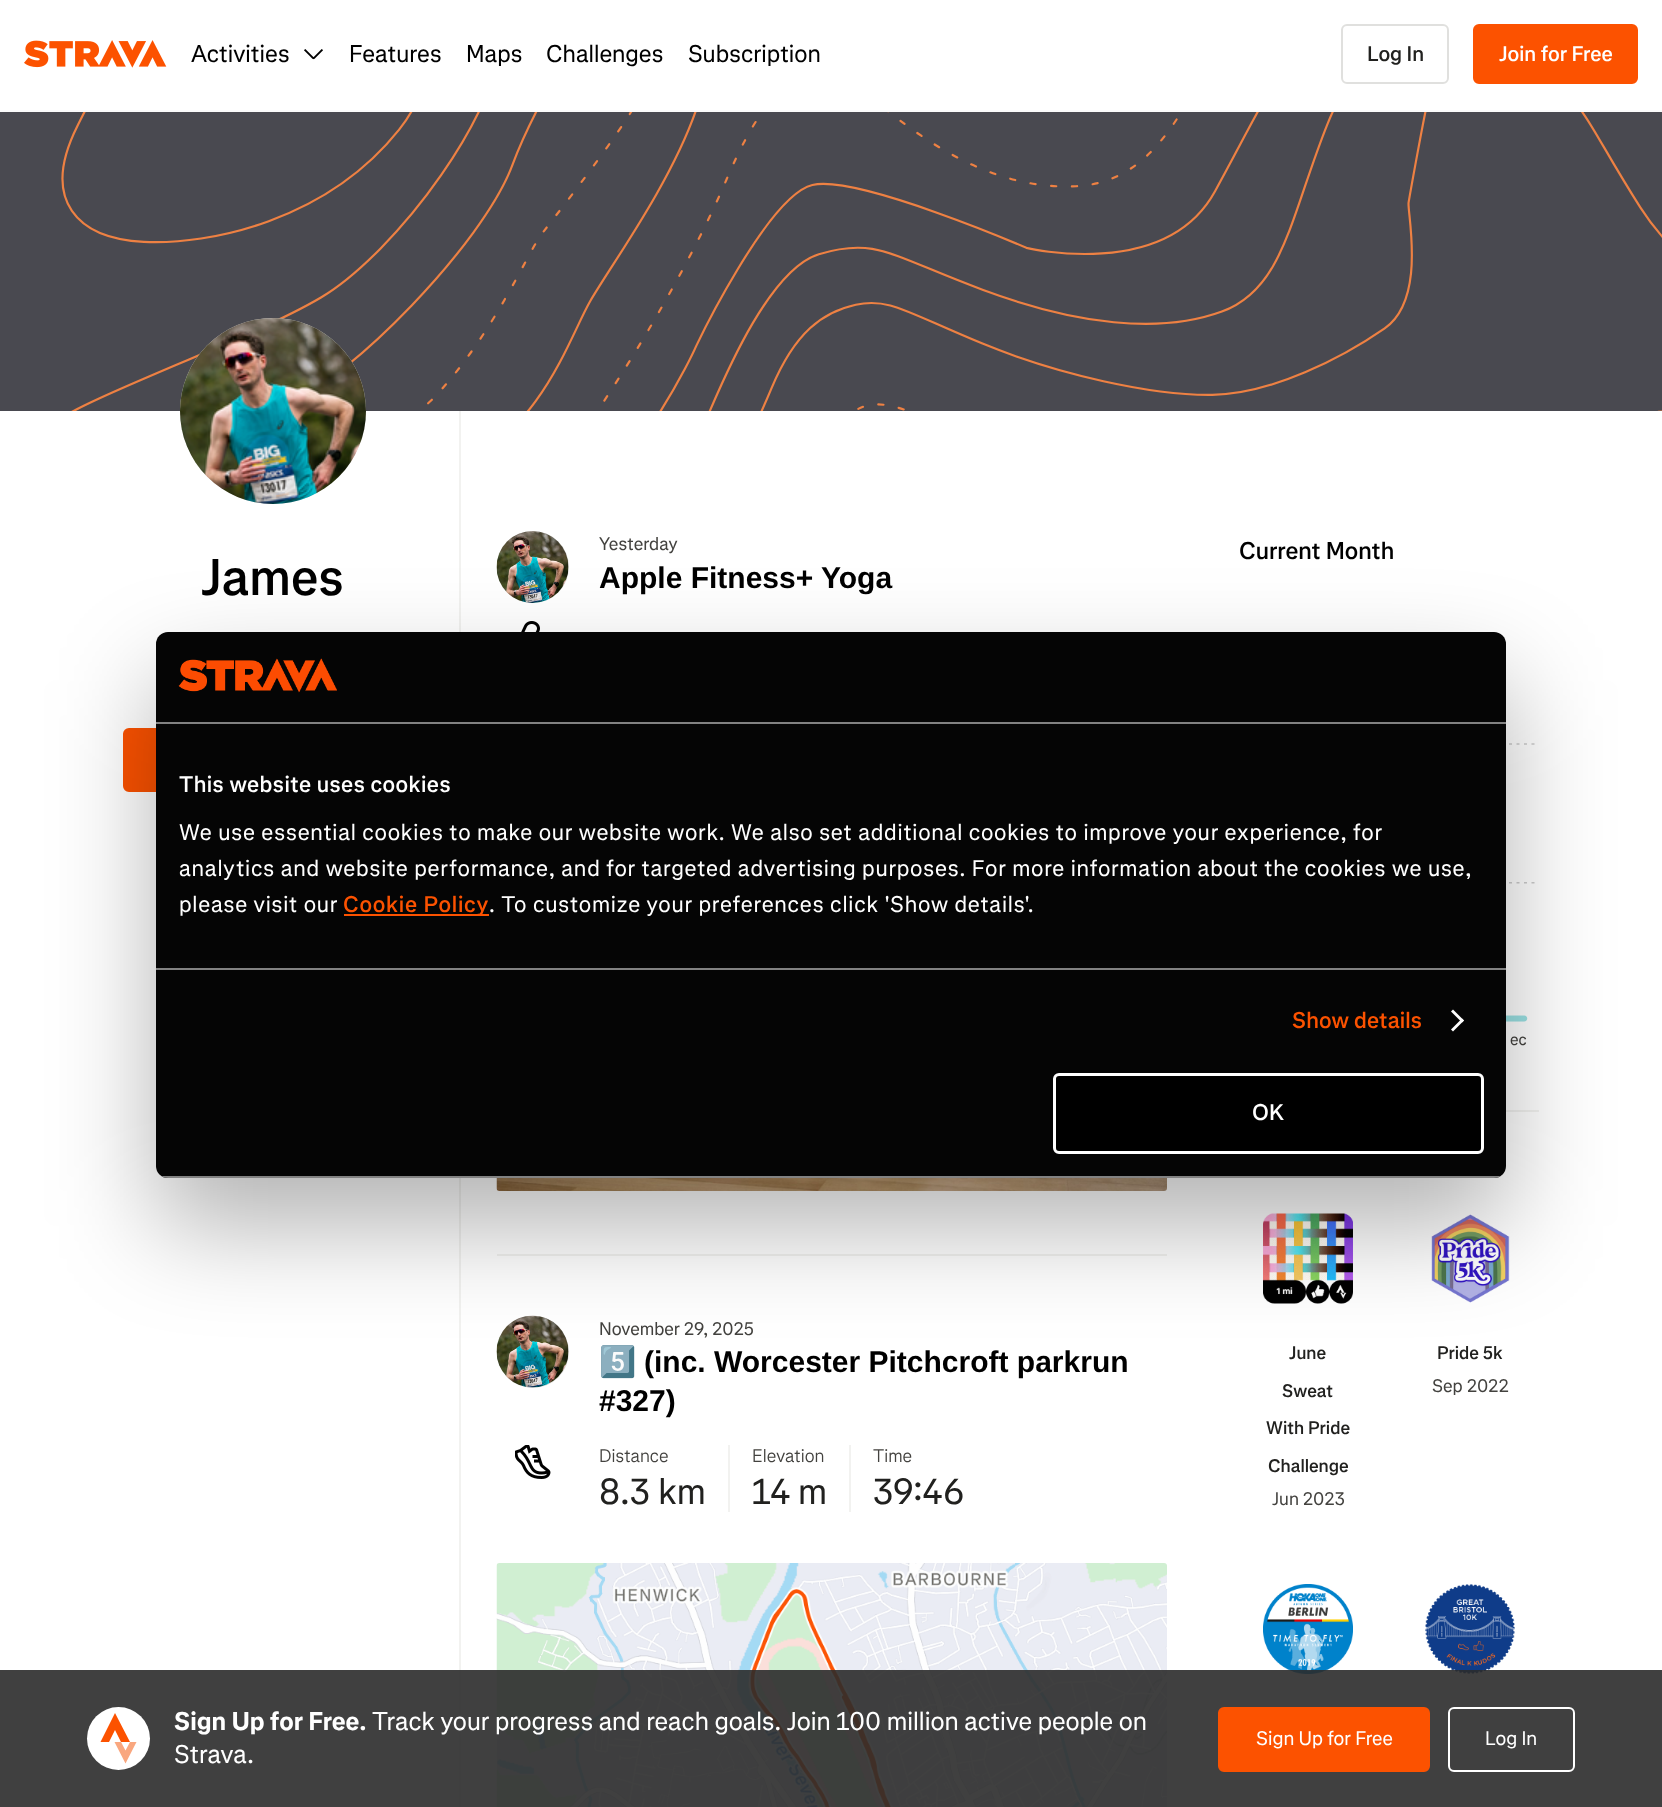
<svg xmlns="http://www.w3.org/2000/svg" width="1662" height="1807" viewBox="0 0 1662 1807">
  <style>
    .t1 { font: 24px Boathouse; fill: #000; }
    .t2 { font: 500 21px Boathouse; fill: #21211f; }
    .t3 { font: 500 21px Boathouse; fill: #fff; }
    .t4 { font: 500 51px Boathouse; fill: #000; }
    .t5 { font: 18px Boathouse; fill: #43423f; }
    .t6 { font: bold 30px Liberation Sans; fill: #000; }
    .t7 { font: bold 30px Noto Color Emoji; fill: #000; }
    .t8 { font: 300 18px Boathouse; fill: #43423f; }
    .t9 { font: 36px Boathouse; fill: #21211f; }
    .t10 { font: 500 24px Boathouse; fill: #000; }
    .t11 { font: 16px Boathouse; fill: #43423f; }
    .t12 { font: 500 18px Boathouse; fill: #21211f; }
    .t13 { font: bold 25.5px Boathouse; fill: #fff; }
    .t14 { font: 25.5px Boathouse; fill: #fff; }
    .t15 { font: 19.5px Boathouse; fill: #fff; }
    .t16 { font: 500 22.5px Boathouse; letter-spacing: 0.4px; fill: #fff; }
    .t17 { font: 22.5px Boathouse; letter-spacing: 0.75px; fill: #fff; }
    .t18 { font: 500 22.5px Boathouse; letter-spacing: 0.75px; fill: #fc5200; }
    .t19 { font: 500 22.5px Boathouse; letter-spacing: 0.1px; fill: #fc5200; }
    .t20 { font: 500 22.5px Boathouse; fill: #fff; }
  </style>
  <defs>
    <clipPath id="clip1"><rect x="156" y="632" width="1350" height="546" rx="12"/></clipPath>
  </defs>
  <rect width="100%" height="100%" fill="#fff"/>
  <rect x="0" y="110" width="1662" height="2" fill="#fafafa"/>
  <image x="24" y="40" width="143" height="28" href="images/1.png"/>
  <text x="191" y="62" class="t1">Activities</text>
  <image x="304" y="49" width="19" height="11" href="images/2.png"/>
  <text x="349" y="62" class="t1">Features</text>
  <text x="466" y="62" class="t1">Maps</text>
  <text x="546" y="62" class="t1">Challenges</text>
  <text x="688" y="62" class="t1">Subscription</text>
  <rect x="1342" y="25" width="106" height="58" rx="5" fill="none" stroke="#e0e0de" stroke-width="2"/>
  <text x="1367" y="61" class="t2">Log In</text>
  <rect x="1474" y="25" width="163" height="58" rx="5" fill="#fc5200" stroke="#fc5200" stroke-width="2"/>
  <text x="1499" y="61" class="t3">Join for Free</text>
  <image x="0" y="112" width="1662" height="299" href="images/3.png"/>
  <circle cx="273" cy="411" r="93" fill="#e0e0de"/>
  <image x="180" y="318" width="186" height="186" href="images/4.png"/>
  <text x="201" y="595" class="t4">James</text>
  <rect x="124" y="729" width="298" height="62" rx="5" fill="#fc5200" stroke="#fc5200" stroke-width="2"/>
  <rect x="459" y="411" width="2" height="1396" fill="#f2f2f0"/>
  <circle cx="533" cy="567" r="36" fill="#e0e0de"/>
  <image x="496" y="531" width="73" height="72" href="images/5.png"/>
  <text x="599" y="550" class="t5">Yesterday</text>
  <text x="599" y="588" class="t6">Apple Fitness+ Yoga</text>
  <image x="521" y="621" width="19" height="11" href="images/6.png"/>
  <image x="496" y="1178" width="671" height="13" href="images/7.png"/>
  <rect x="497" y="1254" width="670" height="2" fill="#f2f2f0"/>
  <circle cx="533" cy="1352" r="36" fill="#e0e0de"/>
  <image x="496" y="1315" width="73" height="73" href="images/8.png"/>
  <text x="599" y="1335" class="t5">November 29, 2025</text>
  <text x="599" y="1372" class="t7">5️⃣</text>
  <text x="644" y="1372" class="t6">(inc. Worcester Pitchcroft parkrun</text>
  <text x="599" y="1411" class="t6">#327)</text>
  <image x="515" y="1445" width="36" height="34" href="images/9.png"/>
  <rect x="728" y="1445" width="2" height="67" fill="#f2f2f0"/>
  <text x="599" y="1462" class="t8">Distance</text>
  <text x="599" y="1504" class="t9">8.3 km</text>
  <rect x="849" y="1445" width="2" height="67" fill="#f2f2f0"/>
  <text x="752" y="1462" class="t8">Elevation</text>
  <text x="752" y="1504" class="t9">14 m</text>
  <text x="873" y="1462" class="t8">Time</text>
  <text x="873" y="1504" class="t9">39:46</text>
  <image x="496" y="1563" width="671" height="244" href="images/10.png"/>
  <text x="1239" y="559" class="t10">Current Month</text>
  <image x="1506" y="743" width="29" height="279" href="images/11.png"/>
  <text x="1510" y="1045" class="t11">ec</text>
  <rect x="1506" y="1110" width="33" height="2" fill="#f2f2f0"/>
  <image x="1263" y="1213" width="90" height="91" href="images/12.png"/>
  <text x="1289" y="1359" class="t12">June</text>
  <text x="1282" y="1397" class="t12">Sweat</text>
  <text x="1266" y="1434" class="t12">With Pride</text>
  <text x="1268" y="1472" class="t12">Challenge</text>
  <text x="1272" y="1505" class="t5">Jun 2023</text>
  <image x="1431" y="1214" width="79" height="89" href="images/13.png"/>
  <text x="1437" y="1359" class="t12">Pride 5k</text>
  <text x="1432" y="1392" class="t5">Sep 2022</text>
  <image x="1263" y="1584" width="90" height="90" href="images/14.png"/>
  <image x="1425" y="1584" width="90" height="90" href="images/15.png"/>
  <rect x="0" y="1670" width="1662" height="137" fill="#2b2b2be6"/>
  <circle cx="118.5" cy="1738.5" r="31.5" fill="#fff"/>
  <path d="M125.5 1750.5L121 1742H114.5L125.5 1763.5L136.5 1742H130Z" fill="#f9a77f"/>
  <path d="M115 1730L121 1742H130L115 1713L100.5 1742H109Z" fill="#fc5200"/>
  <text x="174" y="1730" class="t13">Sign Up for Free.</text>
  <text x="372" y="1730" class="t14">Track your progress and reach goals. Join 100 million active people on</text>
  <text x="174" y="1763" class="t14">Strava.</text>
  <rect x="1219" y="1708" width="210" height="63" rx="5" fill="#fc5200" stroke="#fc5200" stroke-width="2"/>
  <text x="1256" y="1745" class="t15">Sign Up for Free</text>
  <rect x="1449" y="1708" width="125" height="63" rx="5" fill="none" stroke="#fff" stroke-width="2"/>
  <text x="1485" y="1745" class="t15">Log In</text>
  <rect x="156" y="680" width="1350" height="546" rx="12" fill="#0000004d" filter="blur(51px)"/>
  <rect x="156" y="632" width="1350" height="546" rx="12" fill="#050505"/>
  <rect x="156" y="722" width="1350" height="2" fill="#828282"/>
  <image x="178" y="658" width="159" height="35" href="images/16.png"/>
  <rect x="156" y="968" width="1350" height="2" fill="#828282"/>
  <text x="179" y="792" class="t16">This website uses cookies</text>
  <text x="179" y="840" class="t17">We use essential cookies to make our website work. We also set additional cookies to improve your experience, for</text>
  <text x="179" y="876" class="t17">analytics and website performance, and for targeted advertising purposes. For more information about the cookies we use,</text>
  <text x="179" y="912" class="t17">please visit our</text>
  <rect x="344" y="914" width="145" height="2" fill="#fc5200"/>
  <text x="343" y="912" class="t18">Cookie Policy</text>
  <text x="489" y="912" class="t17">. To customize your preferences click 'Show details'.</text>
  <text x="1292" y="1028" class="t19">Show details</text>
  <path d="M1453 1009.5L1464 1020.5L1462 1022.5L1451 1011.5Z" fill="#fff"/>
  <path d="M1462 1018.5L1464 1020.5L1453 1031.5L1451 1029.5Z" fill="#fff"/>
  <g clip-path="url(#clip1)">
    <rect x="156" y="1176" width="1350" height="2" fill="#828282"/>
  </g>
  <rect x="1054.5" y="1074.5" width="428" height="78" rx="4.5" fill="#000" stroke="#fff" stroke-width="3"/>
  <text x="1252" y="1120" class="t20">OK</text>
</svg>
